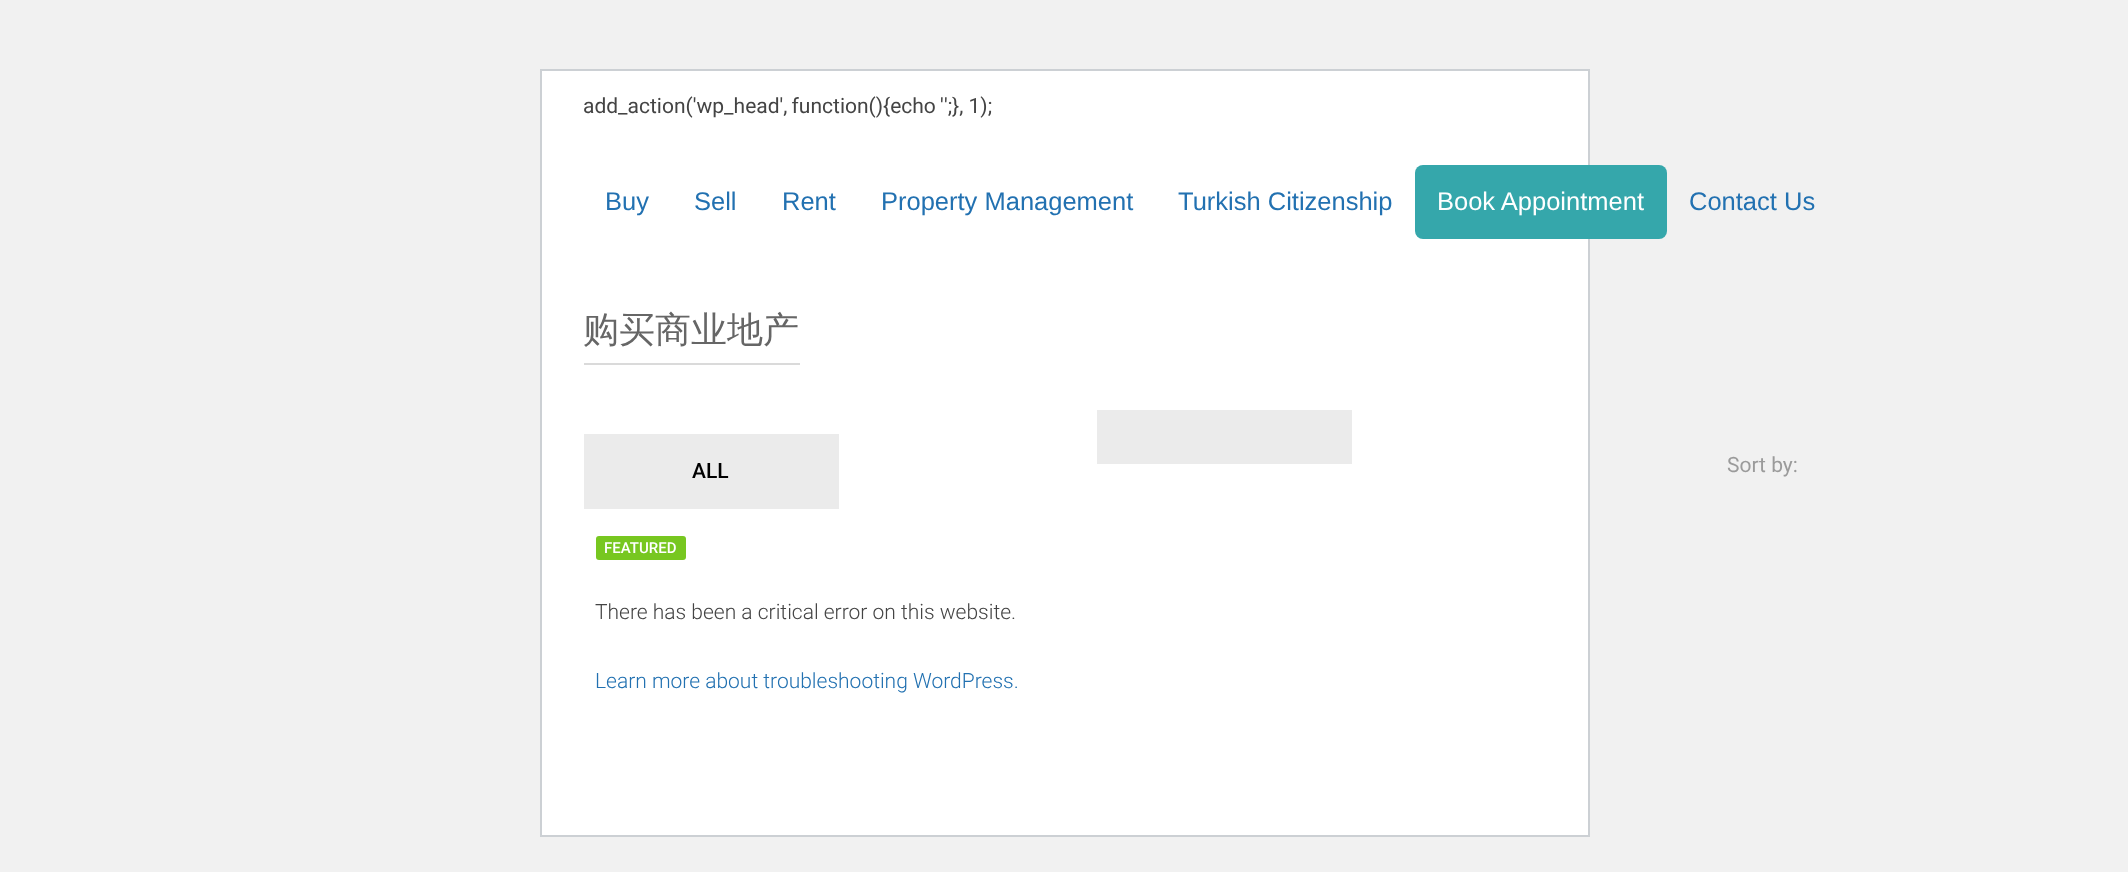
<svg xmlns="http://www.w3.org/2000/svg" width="2128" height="872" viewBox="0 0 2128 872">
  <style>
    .t1 { font: 21px Roboto; fill: #444; }
    .t2 { font: 25.5px Liberation Sans; fill: #2271b1; }
    .t3 { font: 25.5px Liberation Sans; fill: #fff; }
    .t4 { font: 500 36px WenQuanYi Zen Hei; fill: #666; }
    .t5 { font: 500 21px Roboto; fill: #000; }
    .t6 { font: 21px Roboto; fill: #9b9b9b; }
    .t7 { font: 500 15px Roboto; fill: #fff; }
    .t8 { font: 300 21px Roboto; fill: #444; }
    .t9 { font: 300 21px Roboto; fill: #2271b1; }
  </style>
  <rect width="100%" height="100%" fill="#f1f1f1"/>
  <rect x="541" y="70" width="1048" height="766" fill="#fff" stroke="#ccd0d4" stroke-width="2"/>
  <text x="583" y="113" word-spacing="-1" class="t1">add_action('wp_head', function(){echo '</text>
  <text x="944" y="113" class="t1">';}, 1);</text>
  <text x="605" y="210" class="t2">Buy</text>
  <text x="694" y="210" class="t2">Sell</text>
  <text x="782" y="210" class="t2">Rent</text>
  <text x="881" y="210" class="t2">Property Management</text>
  <text x="1178" y="210" class="t2">Turkish Citizenship</text>
  <rect x="1415" y="165" width="252" height="74" rx="8" fill="#35a7ab"/>
  <text x="1437" y="210" class="t3">Book Appointment</text>
  <text x="1689" y="210" class="t2">Contact Us</text>
  <rect x="584" y="363" width="216" height="2" fill="#dadada"/>
  <text x="583" y="342" class="t4">购买商业地产</text>
  <rect x="1097" y="410" width="255" height="54" fill="#ebebeb"/>
  <rect x="584" y="434" width="255" height="75" fill="#ebebeb"/>
  <text x="692" y="478" class="t5">ALL</text>
  <text x="1727" y="472" class="t6">Sort by:</text>
  <rect x="596" y="536" width="90" height="24" rx="3" fill="#77c720"/>
  <text x="604" y="553" class="t7">FEATURED</text>
  <text x="595" y="619" class="t8">There has been a critical error on this website.</text>
  <text x="595" y="688" class="t9">Learn more about troubleshooting WordPress.</text>
</svg>
